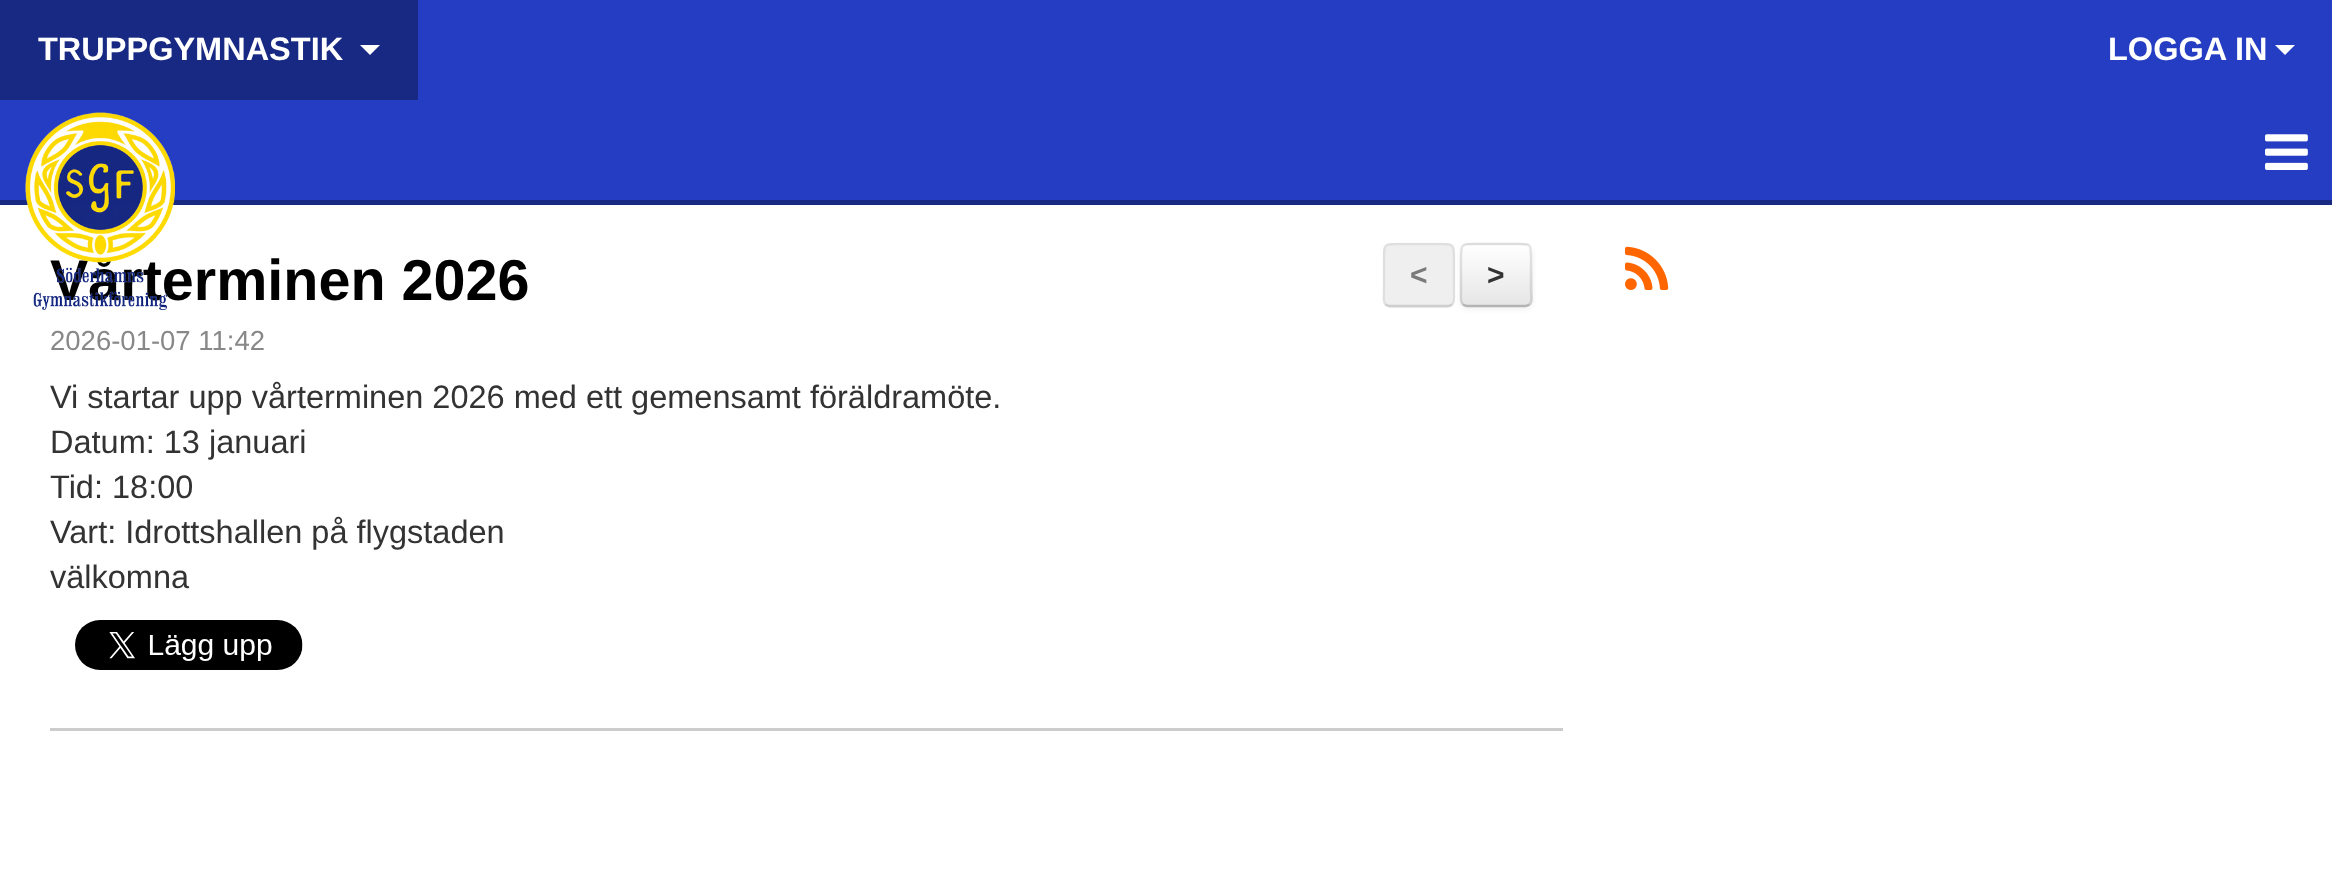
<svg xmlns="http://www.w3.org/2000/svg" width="2332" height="886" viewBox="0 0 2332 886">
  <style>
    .t1 { font: bold 32.5px Liberation Sans; fill: #fff; }
    .t2 { font: bold 57.5px Liberation Sans; fill: #000; }
    .t3 { font: 27.5px Liberation Sans; fill: #888; }
    .t4 { font: 32.5px Liberation Sans; fill: #333; }
    .t5 { font: bold 30px Liberation Sans; fill: #7a7a7a; }
    .t6 { font: bold 30px Liberation Sans; fill: #333; }
  </style>
  <defs>
    <clipPath id="clip1"><rect x="1460" y="243" width="73" height="65" rx="8"/></clipPath>
    <linearGradient id="g1" gradientUnits="userSpaceOnUse" x1="1496" y1="245" x2="1496" y2="305"><stop offset="0" stop-color="#fff"/><stop offset="1" stop-color="#e6e6e6"/></linearGradient>
  </defs>
  <rect width="100%" height="100%" fill="#fff"/>
  <rect x="418" y="0" width="1914" height="100" fill="#253dc2"/>
  <rect x="0" y="0" width="418" height="100" fill="#172983"/>
  <text x="38" y="60" class="t1">TRUPPGYMNASTIK</text>
  <path d="M360 45H380L370 55Z" fill="#fff"/>
  <text x="2108" y="60" class="t1">LOGGA IN</text>
  <path d="M2275 45H2295L2285 55Z" fill="#fff"/>
  <rect x="0" y="100" width="2332" height="100" fill="#253dc2"/>
  <rect x="0" y="200" width="2332" height="5" fill="#172983"/>
  <text x="50" y="300" class="t2">Vårterminen 2026</text>
  <image x="25" y="112" width="150" height="198" href="images/1.png"/>
  <image x="2265" y="134" width="43" height="36" href="images/2.png"/>
  <text x="50" y="350" class="t3">2026-01-07 11:42</text>
  <text x="50" y="408" class="t4">Vi startar upp vårterminen 2026 med ett gemensamt föräldramöte.</text>
  <text x="50" y="453" class="t4">Datum: 13 januari</text>
  <text x="50" y="498" class="t4">Tid: 18:00</text>
  <text x="50" y="543" class="t4">Vart: Idrottshallen på flygstaden</text>
  <text x="50" y="588" class="t4">välkomna</text>
  <image x="75" y="620" width="228" height="50" href="images/3.png"/>
  <rect x="50" y="728" width="1513" height="3" fill="#ccc"/>
  <rect x="1460" y="245" width="73" height="65" rx="8" fill="#0000000d" filter="blur(2.5px)"/>
  <rect x="1383" y="243" width="72" height="65" rx="8" fill="#efefef"/>
  <path d="M1452 304.5C1450.5 305.5 1449 306 1447.5 306H1390C1388.5 306 1387 305.5 1385.5 304.5" fill="none" stroke="#cecece" stroke-width="2.5"/>
  <path d="M1385.5 304.5C1382.5 301.5 1384 295 1384 291.5V258.5C1384 243 1384 244 1399.5 244H1438C1453.5 244 1454 243 1454 258.5V291.5C1454 295 1455 301.5 1452 304.5" fill="none" stroke="#5959591a" stroke-width="2.5"/>
  <text x="1410" y="285" class="t5">&lt;</text>
  <rect x="1460" y="243" width="73" height="65" rx="8" fill="#f5f5f5"/>
  <g clip-path="url(#clip1)">
    <rect x="1460" y="245" width="73" height="60" fill="url(#g1)"/>
  </g>
  <path d="M1529.5 304.5C1528 305.5 1526.5 306 1525 306H1467.5C1466 306 1464.5 305.5 1463 304.5" fill="none" stroke="#b3b3b3" stroke-width="2.5"/>
  <path d="M1463 304.5C1460 301.5 1461 295 1461 291.5V258.5C1461 243 1461.5 244 1477 244H1515.5C1531 244 1531 243 1531 258.5V291.5C1531 295 1532.5 301.5 1529.5 304.5" fill="none" stroke="#0000001a" stroke-width="2.5"/>
  <text x="1487" y="285" class="t6">&gt;</text>
  <image x="1625" y="246" width="44" height="44" href="images/4.png"/>
</svg>
